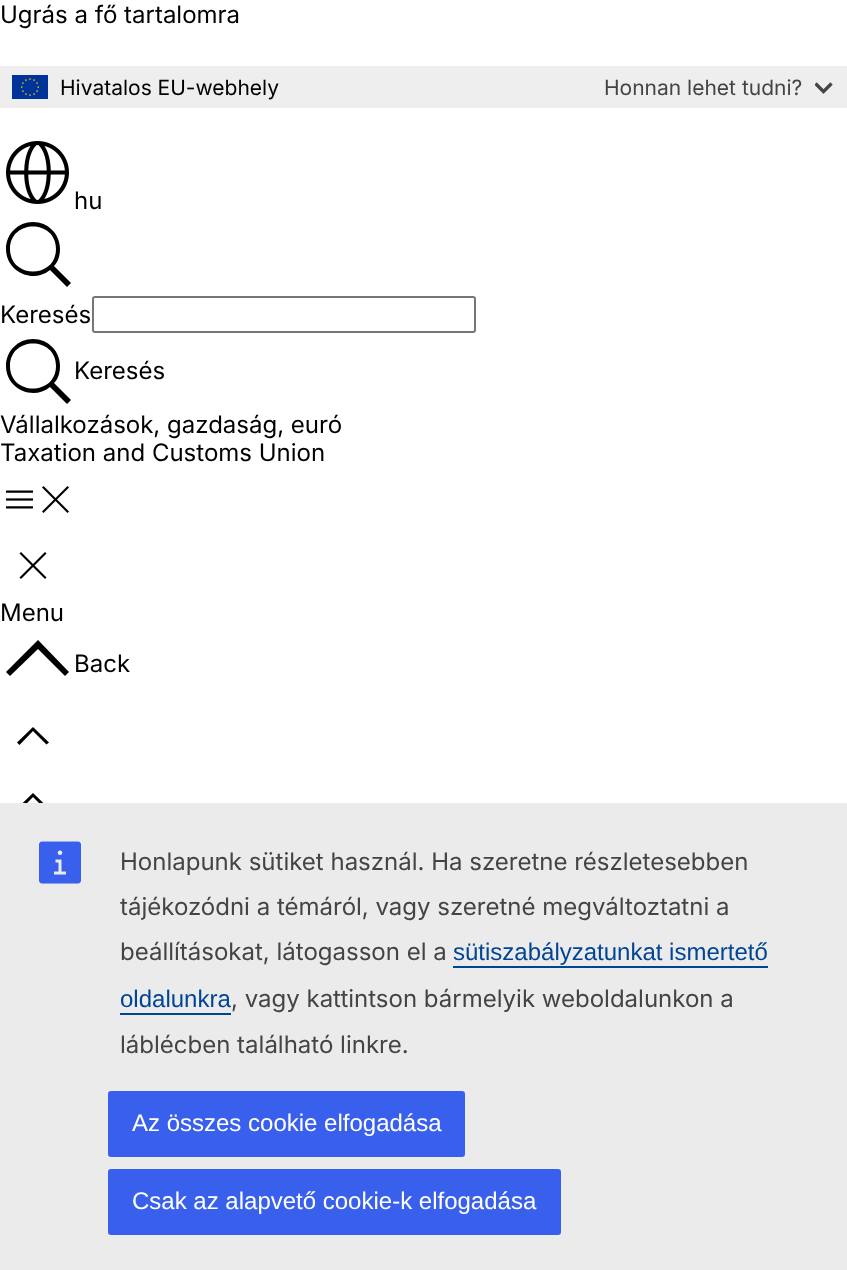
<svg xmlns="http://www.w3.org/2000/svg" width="847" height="1270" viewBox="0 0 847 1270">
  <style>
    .t1 { font: 24px Inter; fill: #000; }
    .t2 { font: 21px Inter; fill: #000; }
    .t3 { font: 21px Inter; fill: #444; }
    .t4 { font: 24px Inter; fill: #444; }
    .t5 { font: 24px Liberation Sans; fill: #004494; }
    .t6 { font: 24px Liberation Sans; fill: #fff; }
  </style>
  <rect width="100%" height="100%" fill="#fff"/>
  <text x="0" y="23" class="t1">Ugrás a fő tartalomra</text>
  <rect x="0" y="66" width="847" height="42" fill="#eee"/>
  <image x="12" y="75" width="36" height="24" href="images/1.png"/>
  <text x="60" y="95" class="t2">Hivatalos EU-webhely</text>
  <text x="604" y="95" class="t3">Honnan lehet tudni?</text>
  <image x="815" y="82" width="18" height="12" href="images/2.png"/>
  <image x="6" y="141" width="63" height="63" href="images/3.png"/>
  <text x="74" y="209" class="t1">hu</text>
  <path d="M6 249C6 234 18 222 33 222C48 222 60 234 60 249C60 256 58 262 54 266L71 283L67 287L50 270C33 284 6 272 6 249M56 249C56 219 10 219 10 249C10 279 56 279 56 249" fill="#000" fill-rule="evenodd"/>
  <text x="0" y="323" class="t1">Keresés</text>
  <rect x="93" y="297" width="382" height="35" rx="2" fill="none" stroke="#767676" stroke-width="2"/>
  <path d="M6 366C6 351 18 339 33 339C48 339 60 351 60 366C60 373 58 379 54 383L71 400L67 404L50 387C33 401 6 389 6 366M56 366C56 336 10 336 10 366C10 396 56 396 56 366" fill="#000" fill-rule="evenodd"/>
  <text x="74" y="379" class="t1">Keresés</text>
  <text x="0" y="433" class="t1">Vállalkozások, gazdaság, euró</text>
  <text x="0" y="461" class="t1">Taxation and Customs Union</text>
  <image x="6" y="490" width="27" height="19" href="images/4.png"/>
  <image x="42" y="486" width="27" height="27" href="images/5.png"/>
  <image x="19" y="552" width="28" height="27" href="images/6.png"/>
  <text x="0" y="621" class="t1">Menu</text>
  <path d="M69 672L65 676L38 649L10 676L6 672L38 640Z" fill="#000"/>
  <text x="74" y="672" class="t1">Back</text>
  <path d="M49 742.5L46.5 744.5L33 731L19.5 745L17 742.5L33 727Z" fill="#000"/>
  <path d="M49 808.5L46.5 810.5L33 797L19.5 811L17 808.5L33 793Z" fill="#000"/>
  <rect x="0" y="803" width="847" height="467" fill="#ebebeb"/>
  <image x="39" y="841" width="42" height="43" href="images/7.png"/>
  <text x="120" y="870" class="t4">Honlapunk sütiket használ. Ha szeretne részletesebben</text>
  <text x="120" y="915" class="t4">tájékozódni a témáról, vagy szeretné megváltoztatni a</text>
  <text x="120" y="960" class="t4">beállításokat, látogasson el a</text>
  <text x="453" y="960" class="t5">sütiszabályzatunkat ismertető</text>
  <rect x="453" y="966" width="315" height="2" fill="#004494"/>
  <text x="120" y="1007" class="t5">oldalunkra</text>
  <rect x="120" y="1013" width="111" height="2" fill="#004494"/>
  <text x="231" y="1007" class="t4">, vagy kattintson bármelyik weboldalunkon a</text>
  <text x="120" y="1053" class="t4">láblécben található linkre.</text>
  <rect x="108" y="1091" width="357" height="66" rx="3" fill="#3860ed"/>
  <text x="132" y="1131" class="t6">Az összes cookie elfogadása</text>
  <rect x="108" y="1169" width="453" height="66" rx="3" fill="#3860ed"/>
  <text x="132" y="1209" class="t6">Csak az alapvető cookie-k elfogadása</text>
</svg>
